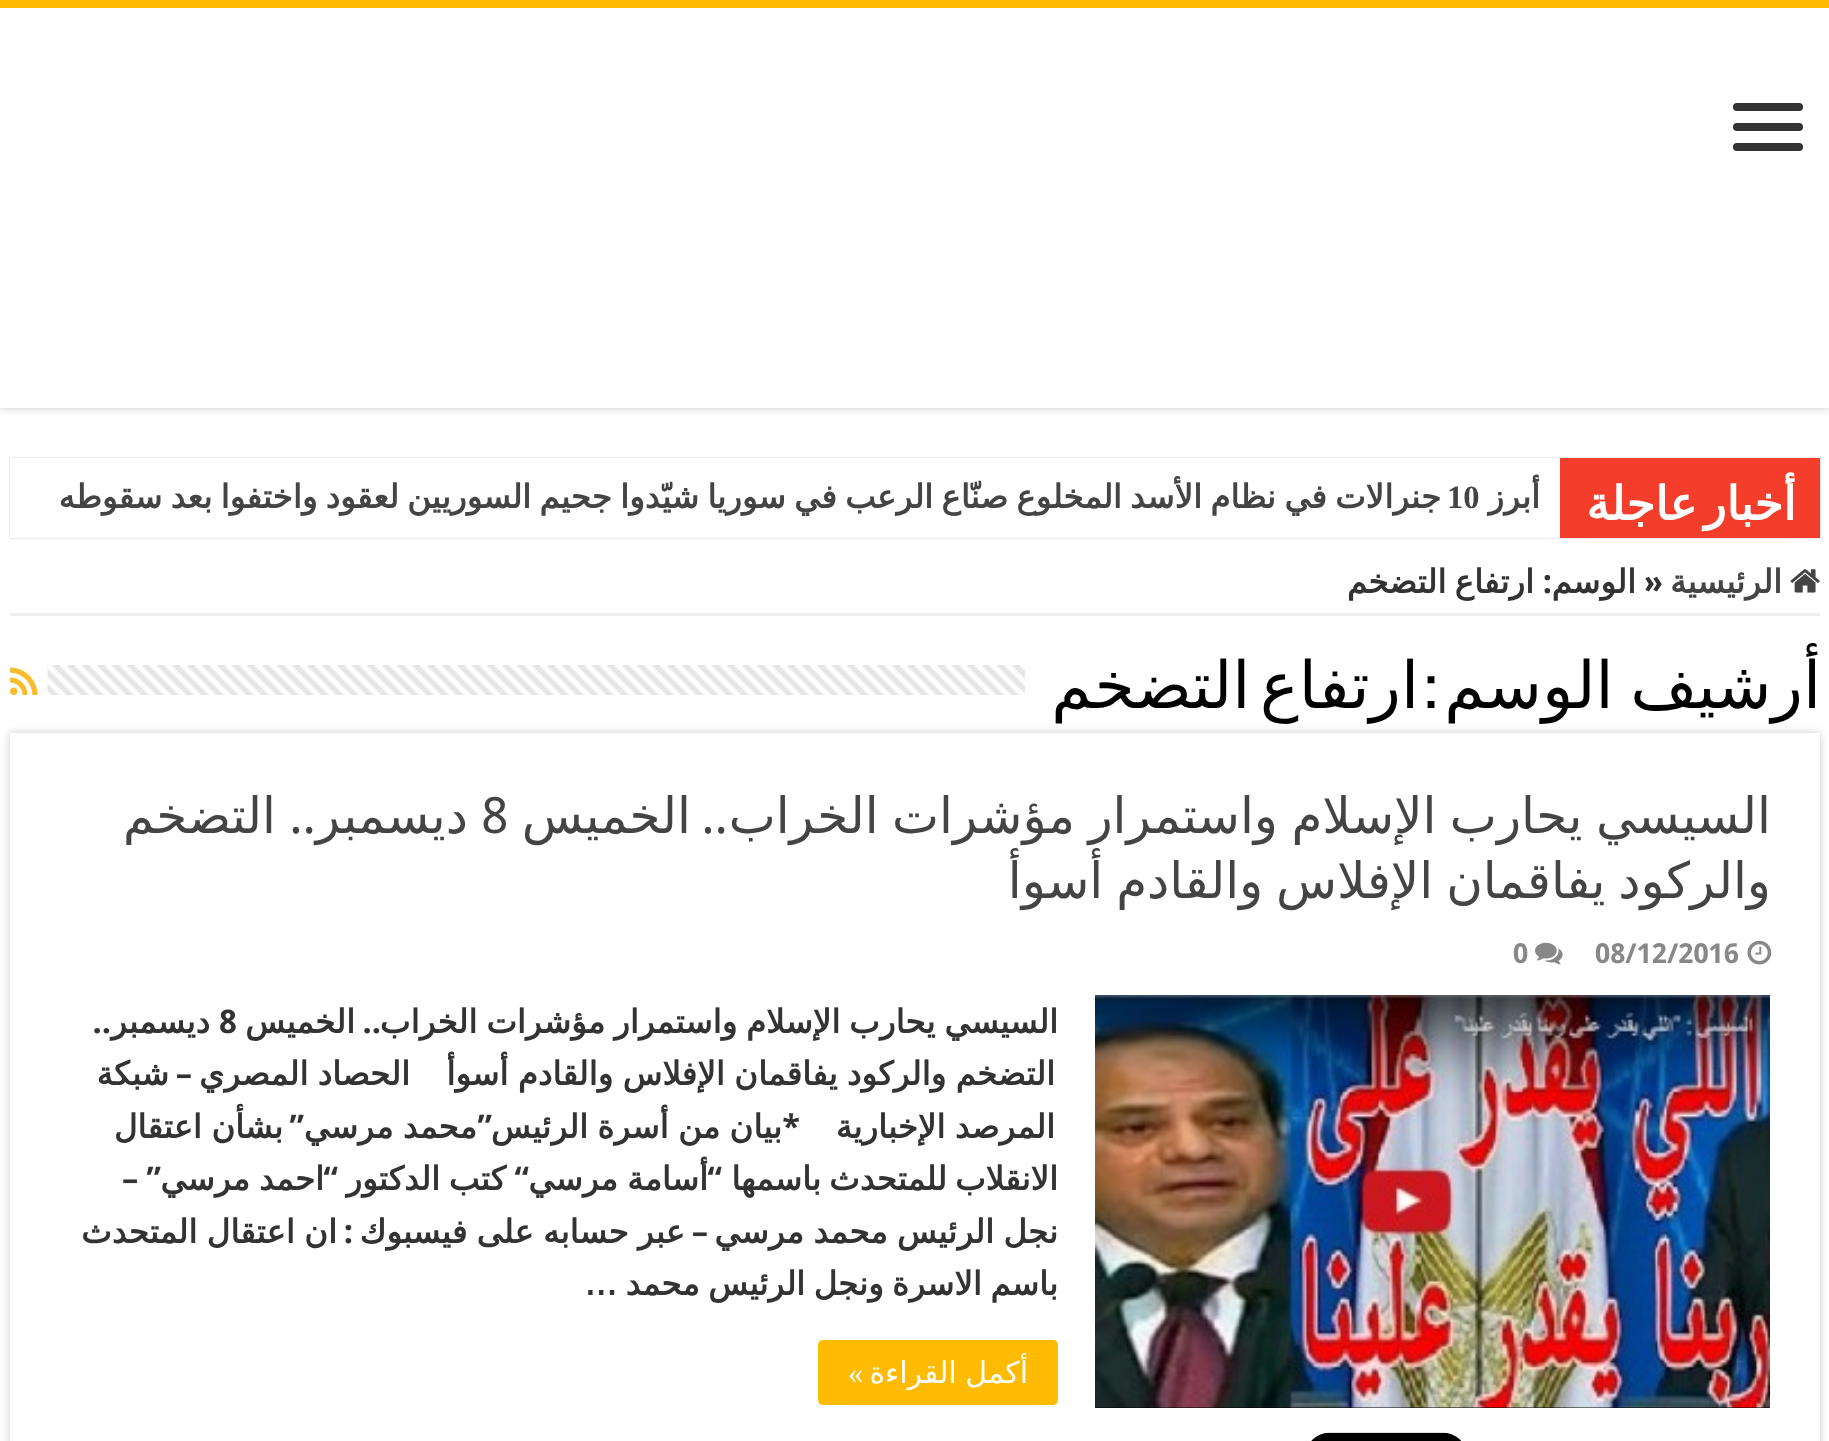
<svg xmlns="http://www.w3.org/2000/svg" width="1829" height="1441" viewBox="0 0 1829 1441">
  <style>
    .t1 { font: bold 46.5px DejaVu Sans; direction: rtl; fill: #fff; }
    .t2 { font: bold 32.5px DejaVu Sans; direction: rtl; fill: #444; }
    .t3 { font: bold 32.5px Liberation Serif; fill: #444; }
    .t4 { font: bold 32.5px Droid Sans; fill: #333; }
    .t5 { font: bold 32.5px DejaVu Sans; direction: rtl; fill: #333; }
    .t6 { font: bold 32.5px Droid Sans; direction: rtl; fill: #333; }
    .t7 { font: 65px DejaVu Sans; direction: rtl; fill: #000; }
    .t8 { font: bold 65px Bebas Neue; direction: rtl; fill: #000; }
    .t9 { font: 50px DejaVu Sans; direction: rtl; fill: #444; }
    .t10 { font: 50px Droid Sans; direction: rtl; fill: #444; }
    .t11 { font: 50px Droid Sans; fill: #444; }
    .t12 { font: bold 27.5px Droid Sans; fill: #888; }
    .t13 { font: 30px DejaVu Sans; direction: rtl; fill: #fff; }
    .t14 { font: 30px Liberation Serif; direction: rtl; fill: #fff; }
  </style>
  <defs>
    <clipPath id="clip1"><path d="M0 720H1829V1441H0ZM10 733H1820V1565H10Z" clip-rule="evenodd"/></clipPath>
  </defs>
  <rect width="100%" height="100%" fill="#fff"/>
  <rect x="0" y="0" width="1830" height="408" fill="#cacaca" filter="blur(4px)"/>
  <rect x="0" y="8" width="1829" height="400" fill="#fff"/>
  <rect x="0" y="0" width="1829" height="8" fill="#ffbb01"/>
  <rect x="1733" y="103" width="70" height="8" rx="4" fill="#333"/>
  <rect x="1733" y="123" width="70" height="8" rx="4" fill="#333"/>
  <rect x="1733" y="143" width="70" height="8" rx="4" fill="#333"/>
  <rect x="10" y="458" width="1810" height="80" fill="#cacaca" filter="blur(1px)"/>
  <rect x="10" y="458" width="1550" height="80" fill="#fff"/>
  <rect x="1560" y="458" width="260" height="80" fill="#f43d2a"/>
  <text x="1796" y="520" word-spacing="-8" class="t1">أخبار عاجلة</text>
  <text x="1540" y="508" class="t2">أبرز</text>
  <text x="1447" y="508" class="t3">10</text>
  <text x="1441" y="508" word-spacing="-2.1" class="t2">جنرالات في نظام الأسد المخلوع صنّاع الرعب في سوريا شيّدوا جحيم السوريين لعقود واختفوا بعد سقوطه</text>
  <rect x="10" y="613" width="1810" height="3" fill="#eee"/>
  <image x="1790" y="569" width="30" height="24" href="images/1.png"/>
  <text x="1782" y="593" class="t2">الرئيسية</text>
  <text x="1644" y="593" class="t4">»</text>
  <text x="1636" y="593" class="t5">الوسم</text>
  <text x="1552" y="593" class="t6">:</text>
  <text x="1534" y="593" word-spacing="-2" class="t5">ارتفاع التضخم</text>
  <g clip-path="url(#clip1)">
    <rect x="10" y="733" width="1810" height="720" fill="#cacaca" filter="blur(4px)"/>
  </g>
  <text x="1821" y="708" word-spacing="-4" class="t7">أرشيف الوسم</text>
  <text x="1437" y="708" class="t8">:</text>
  <text x="1419" y="708" word-spacing="-11" class="t7">ارتفاع التضخم</text>
  <image x="47" y="665" width="978" height="30" href="images/2.png"/>
  <image x="10" y="667" width="28" height="28" href="images/3.png"/>
  <text x="1771" y="833" word-spacing="-2.5" class="t9">السيسي يحارب الإسلام واستمرار مؤشرات الخراب</text>
  <text x="728" y="833" class="t10">..</text>
  <text x="691" y="833" class="t9">الخميس</text>
  <text x="481" y="833" class="t11">8</text>
  <text x="468" y="833" class="t9">ديسمبر</text>
  <text x="316" y="833" class="t10">..</text>
  <text x="276" y="833" class="t9">التضخم</text>
  <text x="1771" y="898" word-spacing="-3" class="t9">والركود يفاقمان الإفلاس والقادم أسوأ</text>
  <image x="1747" y="940" width="25" height="25" href="images/4.png"/>
  <text x="1595" y="963" class="t12">08/12/2016</text>
  <image x="1535" y="942" width="28" height="23" href="images/5.png"/>
  <text x="1513" y="963" class="t12">0</text>
  <rect x="1095" y="1407" width="675" height="1" fill="#000"/>
  <image x="1095" y="995" width="675" height="413" href="images/6.png"/>
  <text x="1058" y="1033" word-spacing="-1.5" class="t5">السيسي يحارب الإسلام واستمرار مؤشرات الخراب</text>
  <text x="381" y="1033" class="t6">..</text>
  <text x="355" y="1033" class="t5">الخميس</text>
  <text x="219" y="1033" class="t4">8</text>
  <text x="210" y="1033" class="t5">ديسمبر</text>
  <text x="111" y="1033" class="t6">..</text>
  <text x="1055" y="1085" word-spacing="-1" class="t5">التضخم والركود يفاقمان الإفلاس والقادم أسوأ</text>
  <text x="410" y="1085" word-spacing="-1" class="t5">الحصاد المصري</text>
  <text x="192" y="1085" class="t6">–</text>
  <text x="169" y="1085" class="t5">شبكة</text>
  <text x="1055" y="1138" word-spacing="-1" class="t5">المرصد الإخبارية</text>
  <text x="800" y="1138" class="t6">*</text>
  <text x="782" y="1138" word-spacing="-1" class="t5">بيان من أسرة الرئيس</text>
  <text x="492" y="1138" class="t6">”</text>
  <text x="304" y="1138" class="t6">”</text>
  <text x="283" y="1138" word-spacing="-1" class="t5">بشأن اعتقال</text>
  <text x="477" y="1138" word-spacing="-1" class="t5">محمد مرسي</text>
  <text x="1058" y="1190" class="t5">الانقلاب</text>
  <text x="947" y="1190" class="t5">للمتحدث</text>
  <text x="821" y="1190" class="t5">باسمها</text>
  <text x="722" y="1190" class="t6">“</text>
  <text x="708" y="1190" class="t5">أسامة</text>
  <text x="529" y="1190" class="t6">“</text>
  <text x="506" y="1190" class="t5">كتب</text>
  <text x="440" y="1190" class="t5">الدكتور</text>
  <text x="338" y="1190" class="t6">“</text>
  <text x="324" y="1190" class="t5">احمد</text>
  <text x="161" y="1190" class="t6">” –</text>
  <text x="618" y="1190" class="t5">مرسي</text>
  <text x="250" y="1190" class="t5">مرسي</text>
  <text x="1058" y="1243" word-spacing="-1" class="t5">نجل الرئيس محمد مرسي</text>
  <text x="708" y="1243" class="t6">–</text>
  <text x="685" y="1243" word-spacing="-1" class="t5">عبر حسابه على فيسبوك</text>
  <text x="353" y="1243" class="t6">:</text>
  <text x="337" y="1243" word-spacing="-1" class="t5">ان اعتقال المتحدث</text>
  <text x="1058" y="1295" word-spacing="-2" class="t5">باسم الاسرة ونجل الرئيس محمد …</text>
  <rect x="818" y="1340" width="240" height="65" rx="5" fill="#ffbb01"/>
  <text x="1028" y="1383" word-spacing="-1" class="t13">أكمل القراءة</text>
  <text x="863" y="1383" class="t14">»</text>
  <image x="1311" y="1432" width="150" height="9" href="images/7.png"/>
</svg>
